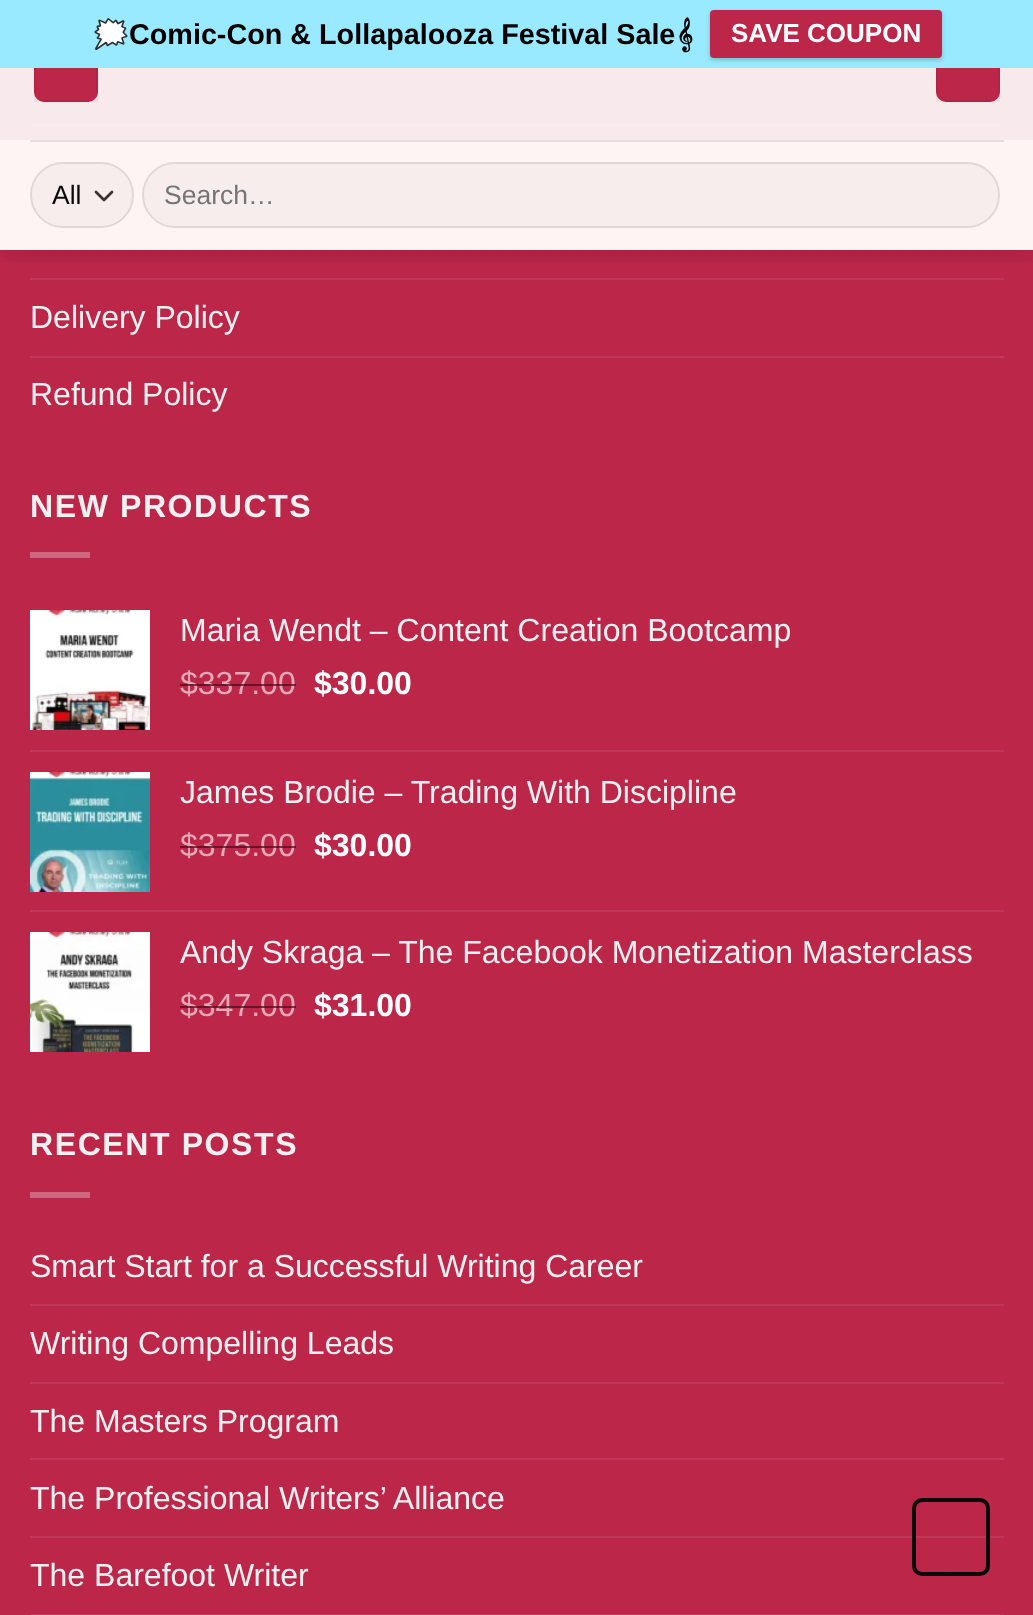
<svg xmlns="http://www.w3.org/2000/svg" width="1033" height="1615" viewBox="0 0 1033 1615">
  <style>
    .t1 { font: bold 28.75px Noto Color Emoji; fill: #000; }
    .t2 { font: bold 28.75px Liberation Sans; fill: #000; }
    .t3 { font: bold 28.75px FreeSerif; fill: #000; }
    .t4 { font: bold 26px Liberation Sans; fill: #fff; }
    .t5 { font: 26.5px Liberation Sans; fill: #0a0a0a; }
    .t6 { font: 26.5px Liberation Sans; fill: #757575; }
    .t7 { font: 32px Liberation Sans; fill: #f1f1f1; }
    .t8 { font: bold 32px Liberation Sans; letter-spacing: 1.6px; fill: #f1f1f1; }
    .t9 { font: 32px Liberation Sans; fill: #e4a8b6; }
    .t10 { font: bold 32px Liberation Sans; fill: #fff; }
  </style>
  <defs>
    <clipPath id="clip1"><rect x="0" y="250" width="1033" height="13"/></clipPath>
  </defs>
  <rect width="100%" height="100%" fill="#bb2649"/>
  <rect x="30" y="124" width="974" height="2" fill="#c03758"/>
  <rect x="30" y="278" width="974" height="2" fill="#c03758"/>
  <g clip-path="url(#clip1)">
    <rect x="2" y="2" width="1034" height="250" fill="#00000026" filter="blur(10px)"/>
  </g>
  <rect x="0" y="68" width="1033" height="72" fill="#ffffffe6"/>
  <rect x="34" y="38" width="64" height="64" rx="10" fill="#bb2649"/>
  <rect x="35" y="39" width="62" height="62" fill="none" stroke="#0000000d" stroke-width="2"/>
  <rect x="936" y="38" width="64" height="64" rx="10" fill="#bb2649"/>
  <rect x="937" y="39" width="62" height="62" fill="none" stroke="#0000000d" stroke-width="2"/>
  <rect x="0" y="0" width="1033" height="68" fill="#99e9ff"/>
  <text x="93" y="44" class="t1">🗯️</text>
  <text x="129" y="44" class="t2">Comic-Con &amp; Lollapalooza Festival Sale</text>
  <text x="676" y="44" class="t3">𝄞</text>
  <rect x="710" y="12" width="232" height="48" rx="4" fill="#00000033" filter="blur(2px)"/>
  <rect x="710" y="10" width="232" height="48" rx="4" fill="#bb2649"/>
  <text x="731" y="42" class="t4">SAVE COUPON</text>
  <rect x="0" y="140" width="1033" height="110" fill="#fff4f4"/>
  <rect x="30" y="140" width="974" height="2" fill="#e7dddd"/>
  <rect x="30" y="162" width="104" height="66" rx="33" fill="#f7eded"/>
  <path d="M96 192L104 200L112 192" fill="none" stroke="#333" stroke-width="2.7" stroke-linecap="round" stroke-linejoin="round"/>
  <rect x="31" y="163" width="102" height="64" rx="32" fill="none" stroke="#00000017" stroke-width="2"/>
  <text x="52" y="204" class="t5">All</text>
  <rect x="142" y="162" width="858" height="66" rx="33" fill="#f7eded"/>
  <rect x="143" y="163" width="856" height="64" rx="32" fill="none" stroke="#00000017" stroke-width="2"/>
  <text x="164" y="204" class="t6">Search…</text>
  <text x="30" y="328" class="t7">Delivery Policy</text>
  <rect x="30" y="356" width="974" height="2" fill="#c03758"/>
  <text x="30" y="405" class="t7">Refund Policy</text>
  <text x="30" y="517" class="t8">NEW PRODUCTS</text>
  <rect x="30" y="552" width="60" height="6" fill="#cf6780"/>
  <image x="30" y="610" width="120" height="120" href="images/1.png"/>
  <text x="180" y="641" class="t7">Maria Wendt – Content Creation Bootcamp</text>
  <text x="180" y="694" class="t9">$337.00</text>
  <rect x="180" y="684" width="18" height="2" fill="#4b0f1dbd"/>
  <rect x="198" y="684" width="98" height="2" fill="#4b0f1dbd"/>
  <text x="314" y="694" class="t10">$30.00</text>
  <rect x="30" y="750" width="974" height="2" fill="#c03758"/>
  <image x="30" y="772" width="120" height="120" href="images/2.png"/>
  <text x="180" y="803" class="t7">James Brodie – Trading With Discipline</text>
  <text x="180" y="856" class="t9">$375.00</text>
  <rect x="180" y="846" width="18" height="2" fill="#4b0f1dbd"/>
  <rect x="198" y="846" width="98" height="2" fill="#4b0f1dbd"/>
  <text x="314" y="856" class="t10">$30.00</text>
  <rect x="30" y="910" width="974" height="2" fill="#c03758"/>
  <image x="30" y="932" width="120" height="120" href="images/3.png"/>
  <text x="180" y="963" class="t7">Andy Skraga – The Facebook Monetization Masterclass</text>
  <text x="180" y="1016" class="t9">$347.00</text>
  <rect x="180" y="1006" width="18" height="2" fill="#4b0f1dbd"/>
  <rect x="198" y="1006" width="98" height="2" fill="#4b0f1dbd"/>
  <text x="314" y="1016" class="t10">$31.00</text>
  <text x="30" y="1155" class="t8">RECENT POSTS</text>
  <rect x="30" y="1192" width="60" height="6" fill="#cf6780"/>
  <text x="30" y="1277" class="t7">Smart Start for a Successful Writing Career</text>
  <rect x="30" y="1304" width="974" height="2" fill="#c03758"/>
  <text x="30" y="1354" class="t7">Writing Compelling Leads</text>
  <rect x="30" y="1382" width="974" height="2" fill="#c03758"/>
  <text x="30" y="1432" class="t7">The Masters Program</text>
  <rect x="30" y="1458" width="974" height="2" fill="#c03758"/>
  <text x="30" y="1509" class="t7">The Professional Writers’ Alliance</text>
  <rect x="30" y="1536" width="974" height="2" fill="#c03758"/>
  <text x="30" y="1586" class="t7">The Barefoot Writer</text>
  <rect x="30" y="1614" width="974" height="1" fill="#c03758"/>
  <rect x="914" y="1500" width="74" height="74" rx="8" fill="none" stroke="#0a0a0a" stroke-width="4"/>
</svg>
